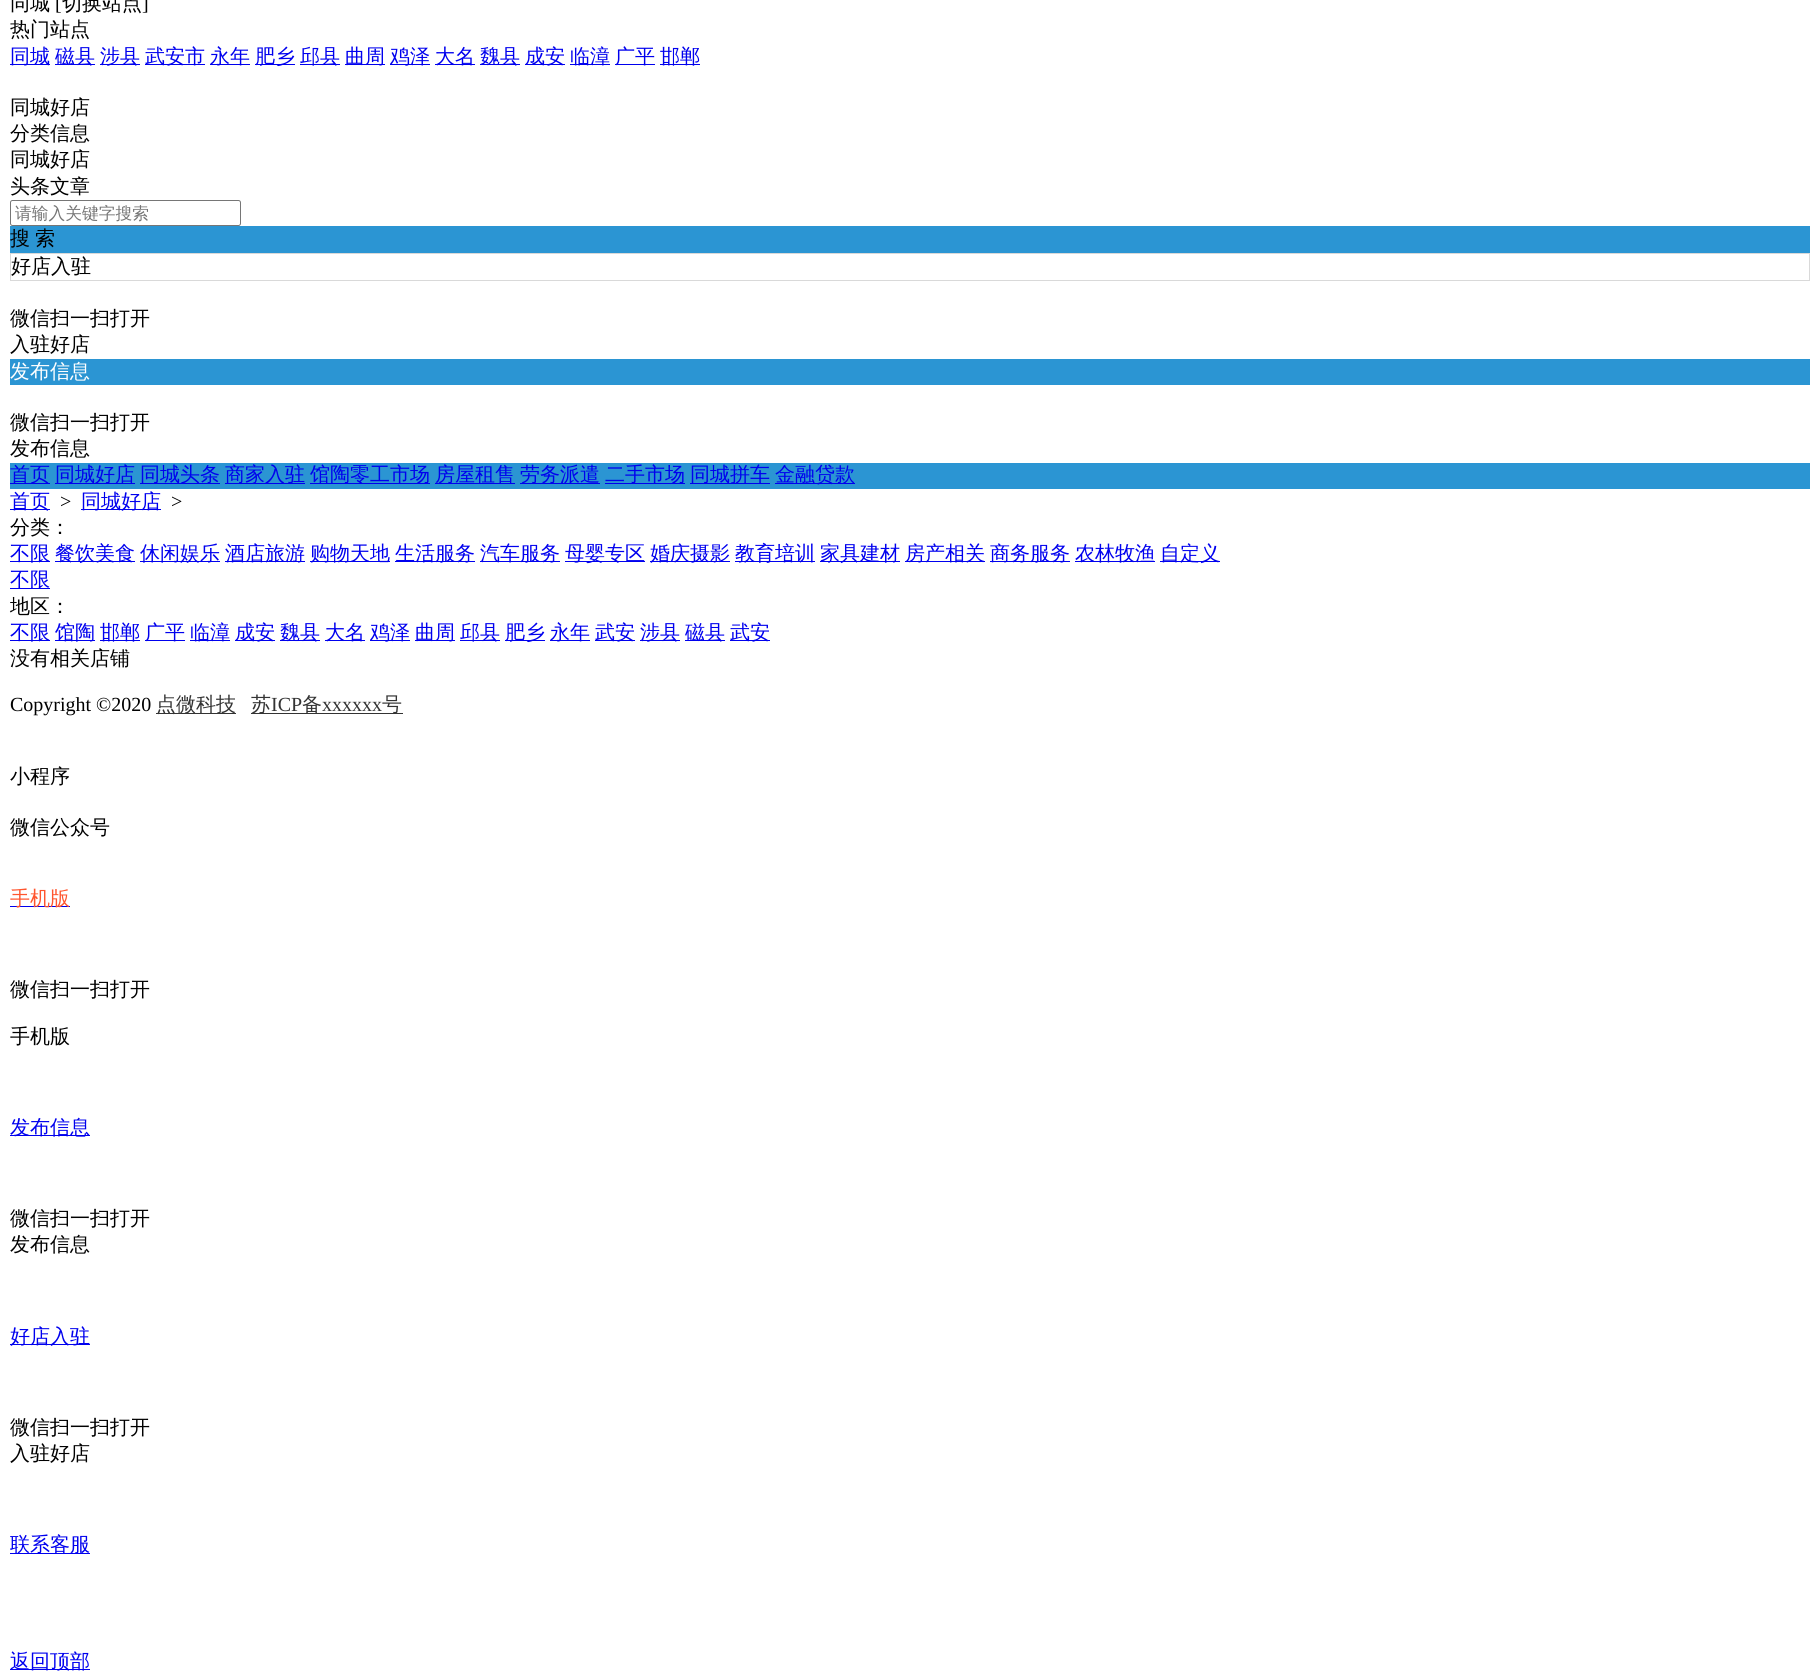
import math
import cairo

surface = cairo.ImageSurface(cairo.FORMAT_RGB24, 1820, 1674)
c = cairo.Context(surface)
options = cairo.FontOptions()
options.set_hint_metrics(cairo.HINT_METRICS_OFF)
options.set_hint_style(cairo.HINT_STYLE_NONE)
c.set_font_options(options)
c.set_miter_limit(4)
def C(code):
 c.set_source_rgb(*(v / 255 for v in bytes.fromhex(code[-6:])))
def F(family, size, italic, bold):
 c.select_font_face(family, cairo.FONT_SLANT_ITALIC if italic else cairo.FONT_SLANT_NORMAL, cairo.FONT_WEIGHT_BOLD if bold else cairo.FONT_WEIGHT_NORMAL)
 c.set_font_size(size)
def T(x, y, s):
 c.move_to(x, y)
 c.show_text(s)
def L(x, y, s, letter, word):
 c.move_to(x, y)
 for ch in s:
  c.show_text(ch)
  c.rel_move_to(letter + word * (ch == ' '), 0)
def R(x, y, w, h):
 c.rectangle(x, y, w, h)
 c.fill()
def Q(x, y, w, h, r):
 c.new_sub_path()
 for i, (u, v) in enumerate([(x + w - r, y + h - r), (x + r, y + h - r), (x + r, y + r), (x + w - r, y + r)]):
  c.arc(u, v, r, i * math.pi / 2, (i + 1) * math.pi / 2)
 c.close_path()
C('ffffff')
c.paint()
F('WenQuanYi Zen Hei Medium',20,0,0)
C('000000')
T(10,10,'同城')
F('Liberation Serif',20,0,0)
T(55,10,'[')
F('WenQuanYi Zen Hei Medium',20,0,0)
T(62,10,'切换站点')
F('Liberation Serif',20,0,0)
T(142,10,']')
F('WenQuanYi Zen Hei Medium',20,0,0)
T(10,36,'热门站点')
C('0000ee')
R(10,64,40,1)
T(10,63,'同城')
R(55,64,40,1)
T(55,63,'磁县')
R(100,64,40,1)
T(100,63,'涉县')
R(145,64,60,1)
T(145,63,'武安市')
R(210,64,40,1)
T(210,63,'永年')
R(255,64,40,1)
T(255,63,'肥乡')
R(300,64,40,1)
T(300,63,'邱县')
R(345,64,40,1)
T(345,63,'曲周')
R(390,64,40,1)
T(390,63,'鸡泽')
R(435,64,40,1)
T(435,63,'大名')
R(480,64,40,1)
T(480,63,'魏县')
R(525,64,40,1)
T(525,63,'成安')
R(570,64,40,1)
T(570,63,'临漳')
R(615,64,40,1)
T(615,63,'广平')
R(660,64,40,1)
T(660,63,'邯郸')
C('000000')
T(10,114,'同城好店')
T(10,140,'分类信息')
T(10,166,'同城好店')
T(10,193,'头条文章')
Q(10.5,200.5,230,25,2)
C('767676')
c.set_line_width(1)
c.stroke()
F('WenQuanYi Zen Hei Medium',16.75,0,0)
C('757575')
T(15,219,'请输入关键字搜索')
C('2b95d3')
R(10,226,1800,27)
F('WenQuanYi Zen Hei Medium',20,0,0)
C('000000')
L(10,245,'搜 索',0,-1)
c.rectangle(10.5,253.5,1799,27)
C('d9d9d9')
c.stroke()
C('000000')
T(11,273,'好店入驻')
T(10,325,'微信扫一扫打开')
T(10,351,'入驻好店')
C('2b95d3')
R(10,359,1800,26)
C('ffffff')
T(10,378,'发布信息')
C('000000')
T(10,429,'微信扫一扫打开')
T(10,455,'发布信息')
C('2b95d3')
R(10,463,1800,26)
C('0000ee')
R(10,483,40,1)
T(10,481,'首页')
R(55,483,80,1)
T(55,481,'同城好店')
R(140,483,80,1)
T(140,481,'同城头条')
R(225,483,80,1)
T(225,481,'商家入驻')
R(310,483,120,1)
T(310,481,'馆陶零工市场')
R(435,483,80,1)
T(435,481,'房屋租售')
R(520,483,80,1)
T(520,481,'劳务派遣')
R(605,483,80,1)
T(605,481,'二手市场')
R(690,483,80,1)
T(690,481,'同城拼车')
R(775,483,80,1)
T(775,481,'金融贷款')
R(10,509,40,1)
T(10,508,'首页')
F('Liberation Serif',20,0,0)
C('000000')
T(60,508,'>')
C('0000ee')
R(81,509,80,1)
F('WenQuanYi Zen Hei Medium',20,0,0)
T(81,508,'同城好店')
F('Liberation Serif',20,0,0)
C('000000')
T(171,508,'>')
F('WenQuanYi Zen Hei Medium',20,0,0)
T(10,534,'分类：')
C('0000ee')
R(10,561,40,1)
T(10,560,'不限')
R(55,561,80,1)
T(55,560,'餐饮美食')
R(140,561,80,1)
T(140,560,'休闲娱乐')
R(225,561,80,1)
T(225,560,'酒店旅游')
R(310,561,80,1)
T(310,560,'购物天地')
R(395,561,80,1)
T(395,560,'生活服务')
R(480,561,80,1)
T(480,560,'汽车服务')
R(565,561,80,1)
T(565,560,'母婴专区')
R(650,561,80,1)
T(650,560,'婚庆摄影')
R(735,561,80,1)
T(735,560,'教育培训')
R(820,561,80,1)
T(820,560,'家具建材')
R(905,561,80,1)
T(905,560,'房产相关')
R(990,561,80,1)
T(990,560,'商务服务')
R(1075,561,80,1)
T(1075,560,'农林牧渔')
R(1160,561,60,1)
T(1160,560,'自定义')
R(10,588,40,1)
T(10,586,'不限')
C('000000')
T(10,613,'地区：')
C('0000ee')
R(10,640,40,1)
T(10,639,'不限')
R(55,640,40,1)
T(55,639,'馆陶')
R(100,640,40,1)
T(100,639,'邯郸')
R(145,640,40,1)
T(145,639,'广平')
R(190,640,40,1)
T(190,639,'临漳')
R(235,640,40,1)
T(235,639,'成安')
R(280,640,40,1)
T(280,639,'魏县')
R(325,640,40,1)
T(325,639,'大名')
R(370,640,40,1)
T(370,639,'鸡泽')
R(415,640,40,1)
T(415,639,'曲周')
R(460,640,40,1)
T(460,639,'邱县')
R(505,640,40,1)
T(505,639,'肥乡')
R(550,640,40,1)
T(550,639,'永年')
R(595,640,40,1)
T(595,639,'武安')
R(640,640,40,1)
T(640,639,'涉县')
R(685,640,40,1)
T(685,639,'磁县')
R(730,640,40,1)
T(730,639,'武安')
C('000000')
T(10,665,'没有相关店铺')
F('Liberation Serif',20,0,0)
T(10,711,'Copyright ©2020')
C('333333')
R(156,713,80,1)
F('WenQuanYi Zen Hei Medium',20,0,0)
T(156,711,'点微科技')
R(251,713,152,1)
T(251,711,'苏')
F('Liberation Serif',20,0,0)
T(271,711,'ICP')
F('WenQuanYi Zen Hei Medium',20,0,0)
T(302,711,'备')
F('Liberation Serif',20,0,0)
T(322,711,'xxxxxx')
F('WenQuanYi Zen Hei Medium',20,0,0)
T(382,711,'号')
C('000000')
T(10,783,'小程序')
T(10,834,'微信公众号')
C('0000ee')
R(10,906,60,1)
C('ff552e')
T(10,905,'手机版')
C('000000')
T(10,996,'微信扫一扫打开')
T(10,1043,'手机版')
C('0000ee')
R(10,1135,80,1)
T(10,1134,'发布信息')
C('000000')
T(10,1225,'微信扫一扫打开')
T(10,1251,'发布信息')
C('0000ee')
R(10,1344,80,1)
T(10,1343,'好店入驻')
C('000000')
T(10,1434,'微信扫一扫打开')
T(10,1460,'入驻好店')
C('0000ee')
R(10,1553,80,1)
T(10,1551,'联系客服')
R(10,1669,80,1)
T(10,1668,'返回顶部')
surface.write_to_png('o.png')
